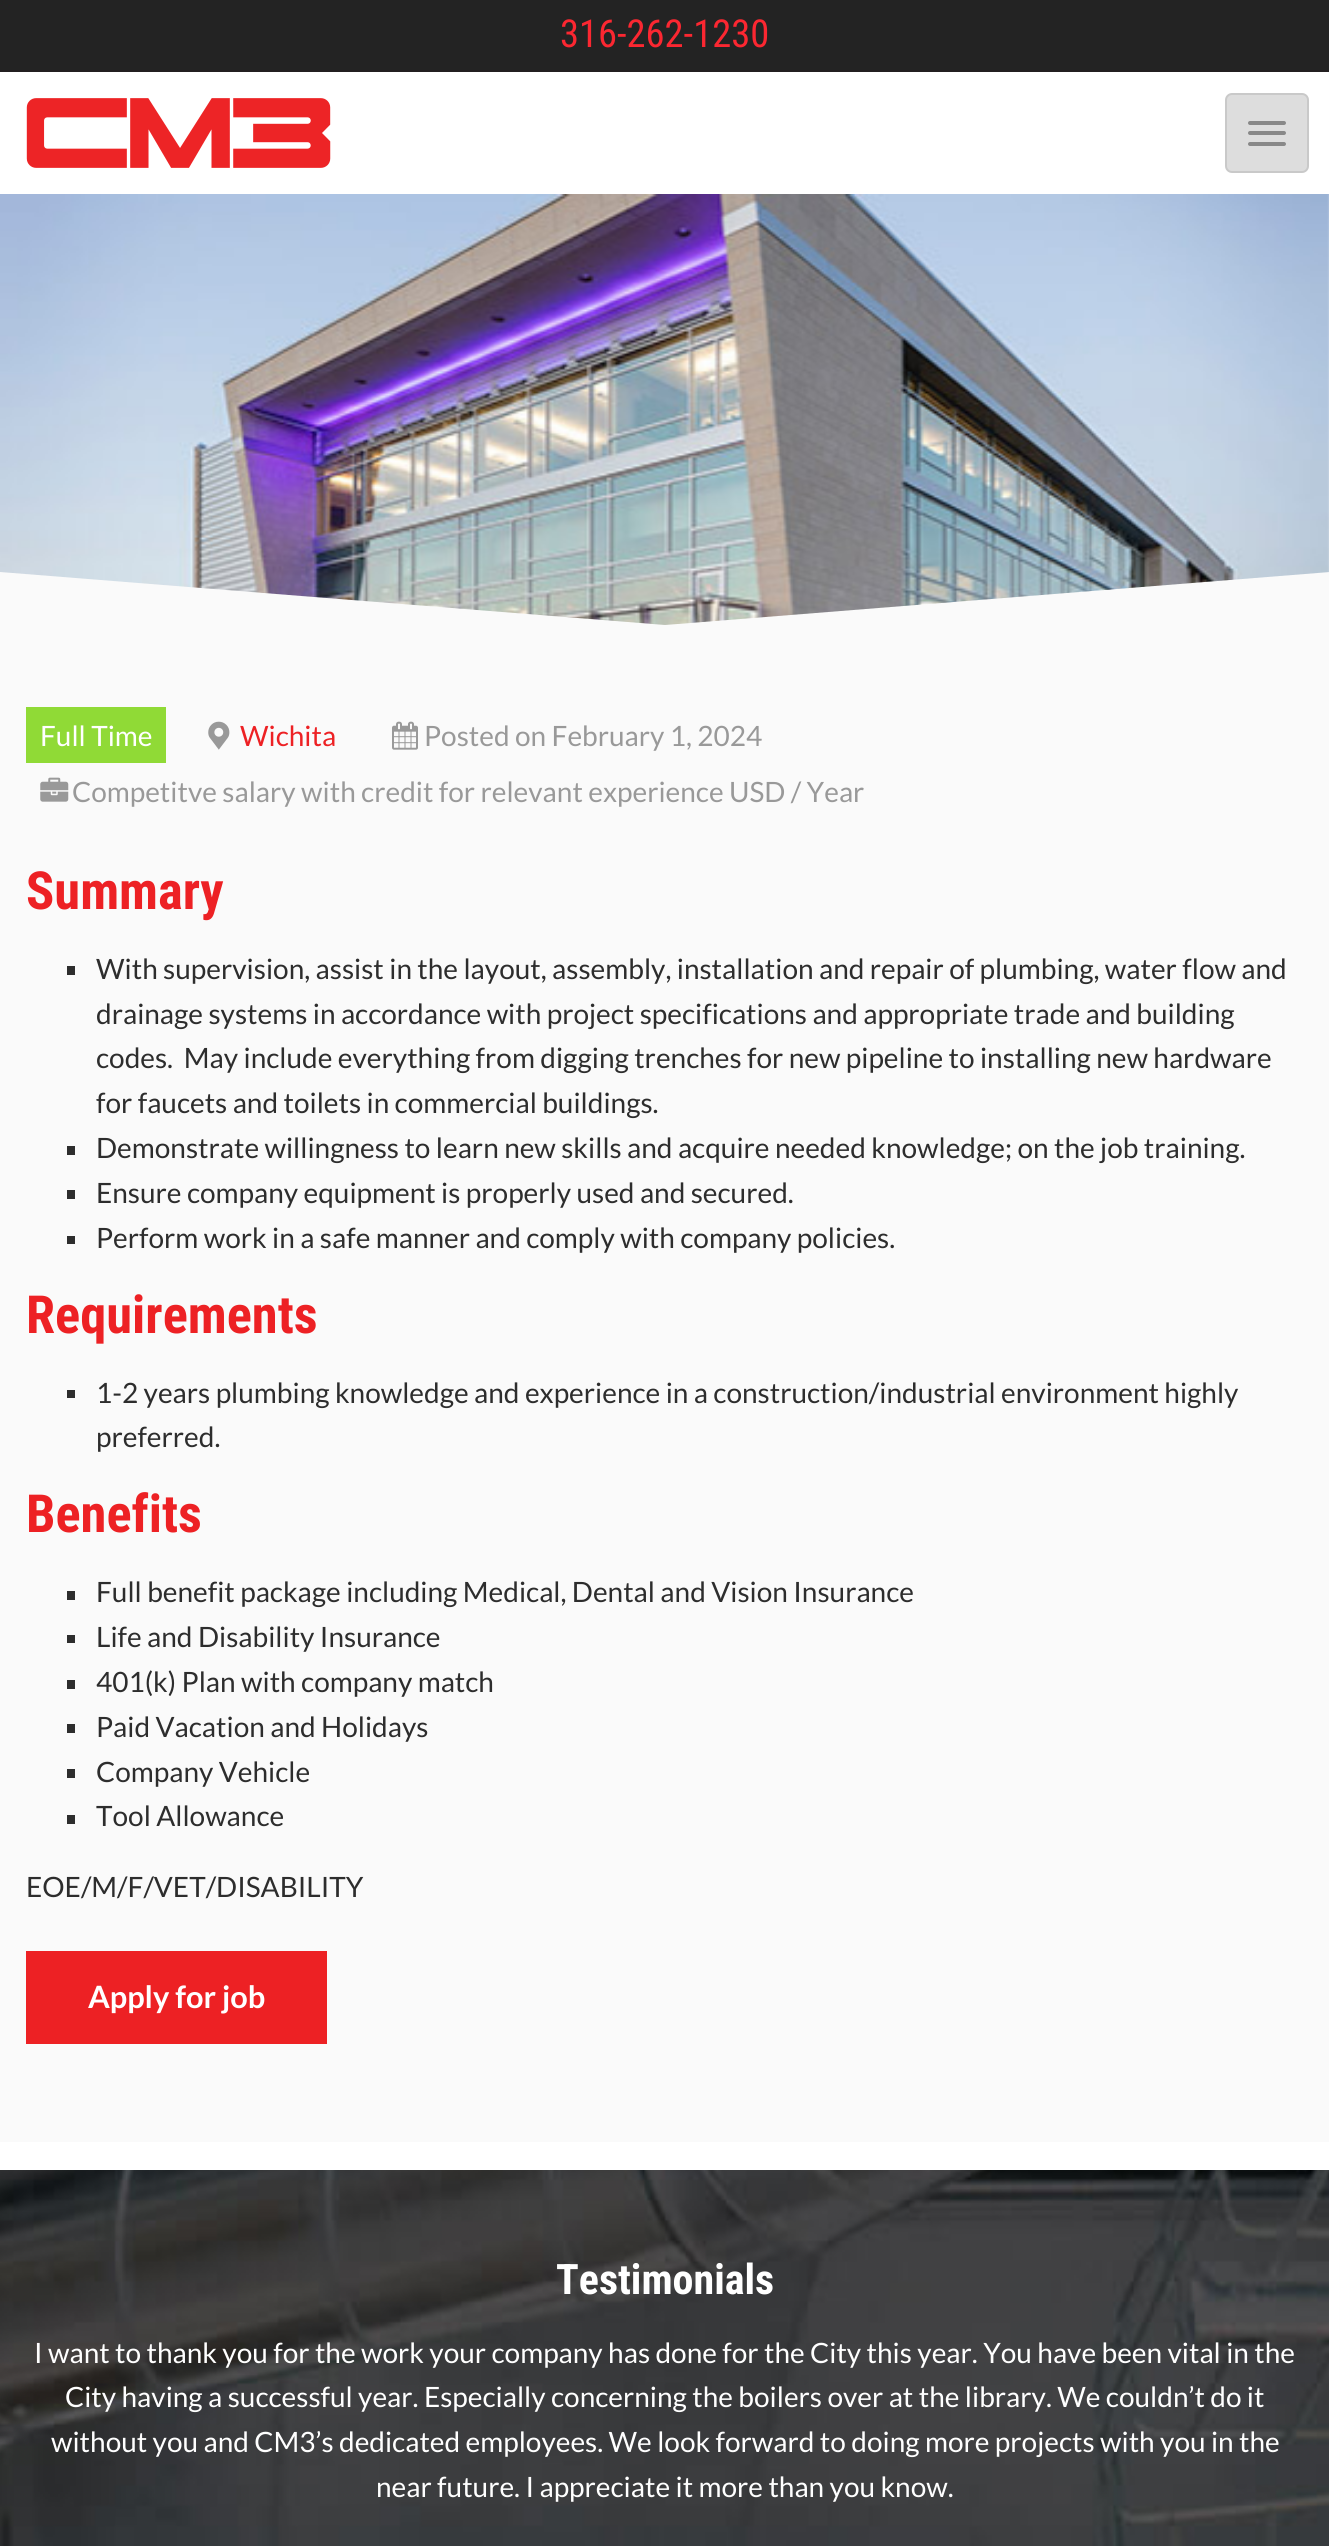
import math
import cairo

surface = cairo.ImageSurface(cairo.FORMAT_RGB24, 1329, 2546)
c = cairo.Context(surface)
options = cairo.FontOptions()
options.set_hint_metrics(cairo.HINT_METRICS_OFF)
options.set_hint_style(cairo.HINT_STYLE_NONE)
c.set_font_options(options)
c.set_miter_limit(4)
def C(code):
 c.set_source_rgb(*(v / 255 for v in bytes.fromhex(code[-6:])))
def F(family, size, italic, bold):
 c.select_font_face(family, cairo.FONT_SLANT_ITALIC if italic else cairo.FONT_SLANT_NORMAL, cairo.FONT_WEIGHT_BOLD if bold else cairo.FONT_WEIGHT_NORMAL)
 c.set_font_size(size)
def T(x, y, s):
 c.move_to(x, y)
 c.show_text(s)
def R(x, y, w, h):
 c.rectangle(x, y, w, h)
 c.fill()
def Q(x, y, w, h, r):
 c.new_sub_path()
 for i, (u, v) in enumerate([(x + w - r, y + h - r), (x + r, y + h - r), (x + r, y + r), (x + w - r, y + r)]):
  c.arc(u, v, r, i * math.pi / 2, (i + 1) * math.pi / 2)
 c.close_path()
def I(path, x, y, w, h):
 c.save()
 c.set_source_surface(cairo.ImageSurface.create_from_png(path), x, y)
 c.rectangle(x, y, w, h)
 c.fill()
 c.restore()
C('ffffff')
c.paint()
C('232323')
R(0,0,1329,70)
C('231f20')
R(0,70,1329,2)
F('Roboto Condensed',38.5,0,0)
C('fc2731')
T(560,47,'316-262-1230')
I('1.png',26,98,305,70)
C('dddddd')
Q(1226,94,82,78,6)
c.fill_preserve()
C('c9c9c9')
c.stroke()
C('888888')
Q(1248,121,38,4,2)
c.fill()
Q(1248,131,38,4,2)
c.fill()
Q(1248,142,38,4,2)
c.fill()
I('2.png',0,194,1329,431)
c.save()
c.rectangle(0,572,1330,65)
c.clip()
C('fafafa')
c.new_path()
c.move_to(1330,639)
c.line_to(0,639)
c.line_to(0,572)
c.line_to(665,625)
c.line_to(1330,572)
c.line_to(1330,606)
c.close_path()
c.fill()
c.restore()
C('fafafa')
R(0,637,1329,1505)
C('90da36')
R(26,707,140,56)
F('Lato',28,0,0)
C('ffffff')
T(40,746,'Full Time')
I('3.png',208,721,22,29)
C('ed2124')
T(240,746,'Wichita')
I('4.png',392,721,26,29)
C('999999')
T(424,746,'Posted on February 1, 2024')
I('5.png',40,777,29,25)
T(72,802,'Competitve salary with credit for relevant experience USD / Year')
F('Roboto Condensed',52.5,0,1)
C('ed2124')
T(26,909,'Summary')
C('2d2d2d')
R(67,966,8,9)
F('Lato',28,0,0)
T(96,979,'With supervision, assist in the layout, assembly, installation and repair of plumbing, water flow and')
T(96,1024,'drainage systems in accordance with project specifications and appropriate trade and building')
T(96,1068,'codes.  May include everything from digging trenches for new pipeline to installing new hardware')
T(96,1113,'for faucets and toilets in commercial buildings.')
R(67,1146,8,9)
T(96,1158,'Demonstrate willingness to learn new skills and acquire needed knowledge; on the job training.')
R(67,1190,8,9)
T(96,1203,'Ensure company equipment is properly used and secured.')
R(67,1236,8,8)
T(96,1248,'Perform work in a safe manner and comply with company policies.')
F('Roboto Condensed',52.5,0,1)
C('ed2124')
T(26,1333,'Requirements')
C('2d2d2d')
R(67,1390,8,8)
F('Lato',28,0,0)
T(96,1403,'1-2 years plumbing knowledge and experience in a construction/industrial environment highly')
T(96,1447,'preferred.')
F('Roboto Condensed',52.5,0,1)
C('ed2124')
T(26,1532,'Benefits')
C('2d2d2d')
R(67,1591,8,9)
F('Lato',28,0,0)
T(96,1602,'Full benefit package including Medical, Dental and Vision Insurance')
R(67,1635,8,8)
T(96,1647,'Life and Disability Insurance')
R(67,1680,8,9)
T(96,1692,'401(k) Plan with company match')
R(67,1724,8,9)
T(96,1737,'Paid Vacation and Holidays')
R(67,1769,8,9)
T(96,1782,'Company Vehicle')
R(67,1815,8,9)
T(96,1826,'Tool Allowance')
T(26,1897,'EOE/M/F/VET/DISABILITY')
C('ed2124')
R(26,1951,301,93)
F('Lato',30.75,0,1)
C('ffffff')
T(88,2008,'Apply for job')
I('6.png',0,2170,1329,376)
F('Roboto Condensed',42,0,1)
T(556,2294,'Testimonials')
F('Lato',28,0,0)
T(34,2363,'I want to thank you for the work your company has done for the City this year. You have been vital in the')
T(65,2407,'City having a successful year. Especially concerning the boilers over at the library. We couldn’t do it')
T(51,2452,'without you and CM3’s dedicated employees. We look forward to doing more projects with you in the')
T(376,2497,'near future. I appreciate it more than you know.')
surface.write_to_png('o.png')
